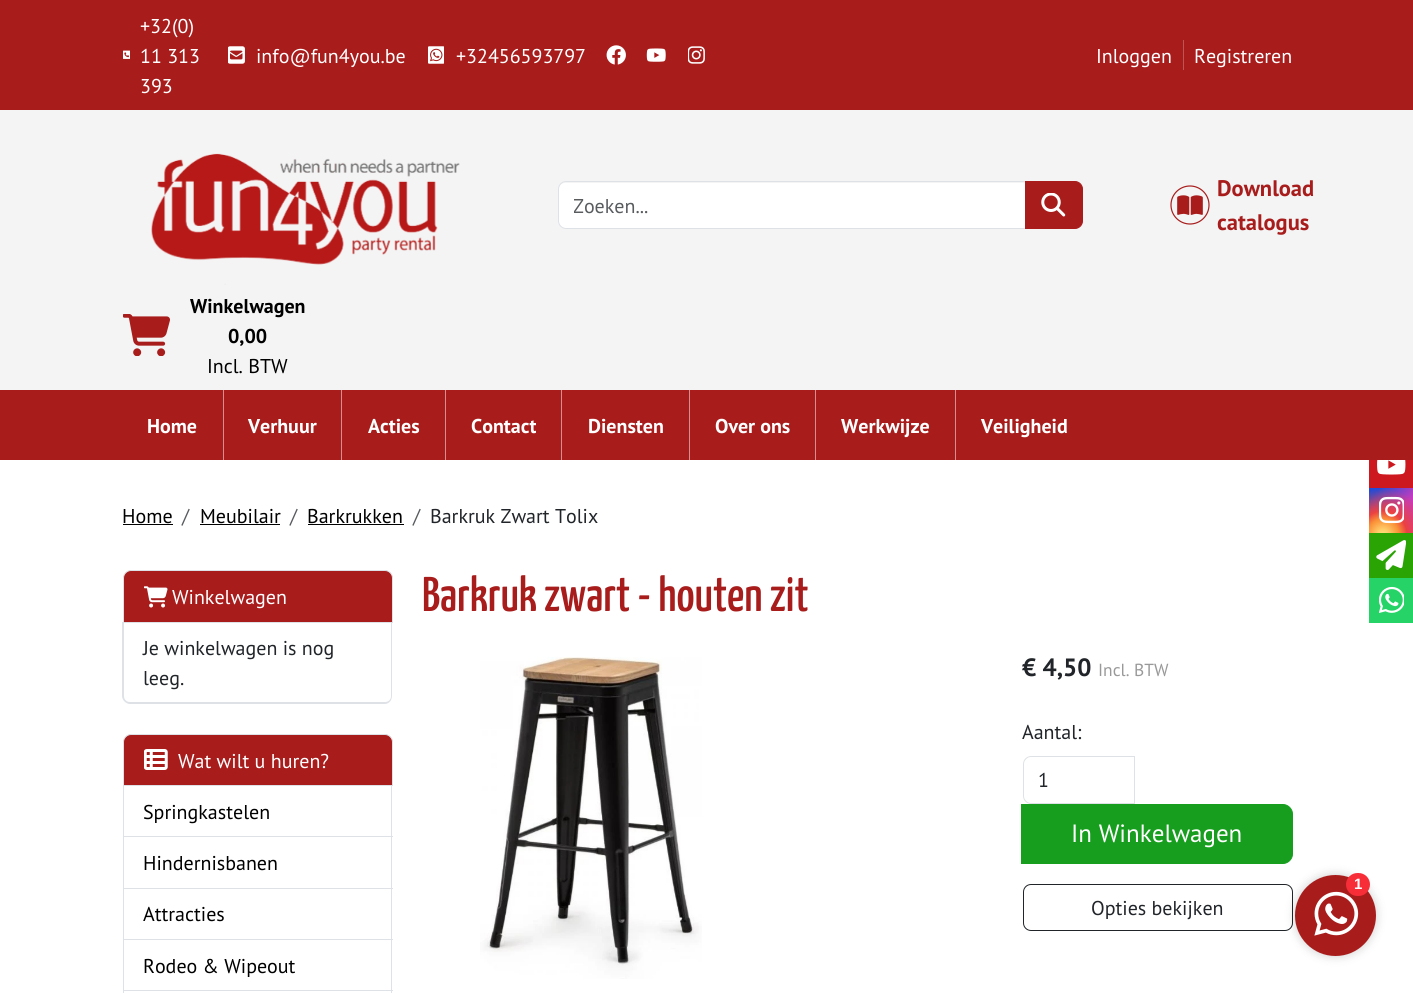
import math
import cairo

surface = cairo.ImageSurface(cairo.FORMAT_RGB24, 1413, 993)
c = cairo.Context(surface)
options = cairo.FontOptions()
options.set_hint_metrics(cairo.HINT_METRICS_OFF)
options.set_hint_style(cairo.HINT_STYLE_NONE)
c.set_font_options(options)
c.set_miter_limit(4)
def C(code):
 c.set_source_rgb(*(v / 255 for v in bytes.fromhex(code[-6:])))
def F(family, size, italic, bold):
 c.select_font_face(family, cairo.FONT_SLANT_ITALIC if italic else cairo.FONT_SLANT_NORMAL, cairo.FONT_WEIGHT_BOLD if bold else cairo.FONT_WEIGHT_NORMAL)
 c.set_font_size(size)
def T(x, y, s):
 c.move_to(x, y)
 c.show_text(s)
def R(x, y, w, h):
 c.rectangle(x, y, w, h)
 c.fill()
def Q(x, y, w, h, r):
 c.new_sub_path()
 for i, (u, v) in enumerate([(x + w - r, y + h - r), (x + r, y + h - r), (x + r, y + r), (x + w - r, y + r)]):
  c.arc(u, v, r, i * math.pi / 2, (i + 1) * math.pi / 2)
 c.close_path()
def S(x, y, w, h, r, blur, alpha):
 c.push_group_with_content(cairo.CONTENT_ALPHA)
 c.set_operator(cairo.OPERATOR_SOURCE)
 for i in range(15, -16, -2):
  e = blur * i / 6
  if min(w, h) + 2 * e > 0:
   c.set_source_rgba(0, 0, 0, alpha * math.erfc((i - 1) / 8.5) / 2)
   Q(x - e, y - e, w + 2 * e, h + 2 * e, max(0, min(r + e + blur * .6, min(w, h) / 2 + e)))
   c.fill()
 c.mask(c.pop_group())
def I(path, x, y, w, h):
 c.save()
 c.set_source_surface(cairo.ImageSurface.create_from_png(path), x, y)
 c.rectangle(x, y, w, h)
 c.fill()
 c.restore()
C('ffffff')
c.paint()
C('f4f4f4')
R(0,110,1413,280)
C('a81c1c')
R(0,0,1413,110)
F('PT Sans',20,0,0)
C('ffffff')
T(140,33,'+32(0)')
I('1.png',123,50,7,9)
T(140,63,'11 313')
T(140,93,'393')
I('2.png',228,46,17,18)
T(256,63,'info@fun4you.be')
I('3.png',428,46,16,18)
T(456,63,'+32456593797')
I('4.png',606,45,20,20)
I('5.png',646,48,20,14)
I('6.png',688,46,17,18)
T(1096,63,'Inloggen')
C('be5555')
R(1183,40,1,30)
C('ffffff')
T(1194,63,'Registreren')
I('7.png',151,153,309,132)
c.new_path()
c.move_to(565,183)
c.line_to(1025,183)
c.line_to(1025,228)
c.line_to(565,228)
c.curve_to(561.5,228,559,225.5,559,222)
c.line_to(559,189)
c.curve_to(559,185.5,561.5,183,565,183)
c.close_path()
c.fill()
c.new_path()
c.move_to(566,181.5)
c.line_to(1025.5,181.5)
c.line_to(1025.5,228.5)
c.line_to(566,228.5)
c.curve_to(562,228.5,558.5,225,558.5,221)
c.line_to(558.5,189)
c.curve_to(558.5,185,562,181.5,566,181.5)
c.close_path()
C('dee2e6')
c.set_line_width(1)
c.stroke()
c.save()
c.rectangle(574,193,417,25)
c.clip()
C('595c5f')
T(573,213,'Zoeken...')
c.restore()
C('a81c1c')
c.new_path()
c.move_to(1025.5,181.5)
c.line_to(1075,181.5)
c.curve_to(1079,181.5,1082.5,185,1082.5,189)
c.line_to(1082.5,221)
c.curve_to(1082.5,225,1079,228.5,1075,228.5)
c.line_to(1025.5,228.5)
c.close_path()
c.fill_preserve()
c.stroke()
I('8.png',1041,193,25,24)
I('9.png',1170,185,40,40)
F('PT Sans',22.5,0,1)
T(1217,196,'Download')
T(1217,230,'catalogus')
I('10.png',123,314,47,42)
F('PT Sans',20,0,1)
C('000000')
T(190,313,'Winkelwagen')
T(228,343,'0,00')
F('PT Sans',20,0,0)
T(207,373,'Incl. BTW')
C('a81c1c')
R(0,390,1413,70)
C('d48e8e')
R(223,390,1,70)
F('PT Sans',20,0,1)
C('ffffff')
T(147,433,'Home')
C('d48e8e')
R(341,390,1,70)
C('ffffff')
T(248,433,'Verhuur')
C('d48e8e')
R(445,390,1,70)
C('ffffff')
T(368,433,'Acties')
C('d48e8e')
R(561,390,1,70)
C('ffffff')
T(471,433,'Contact')
C('d48e8e')
R(689,390,1,70)
C('ffffff')
T(588,433,'Diensten')
C('d48e8e')
R(815,390,1,70)
C('ffffff')
T(715,433,'Over ons')
C('d48e8e')
R(955,390,1,70)
C('ffffff')
T(841,433,'Werkwijze')
T(981,433,'Veiligheid')
F('PT Sans',20,0,0)
C('000000')
T(122,523,'Home')
R(123,524,50,1)
C('595c5f')
T(182,523,'/')
C('000000')
T(200,523,'Meubilair')
R(200,524,80,1)
C('595c5f')
T(290,523,'/')
C('000000')
T(307,523,'Barkrukken')
R(308,524,96,1)
C('595c5f')
T(413,523,'/')
C('212529')
T(430,523,'Barkruk Zwart Tolix')
C('a81c1c')
c.new_path()
c.move_to(131,570.5)
c.line_to(385,570.5)
c.curve_to(389,570.5,392.5,574,392.5,578)
c.line_to(392.5,622.5)
c.line_to(123.5,622.5)
c.line_to(123.5,578)
c.curve_to(123.5,574,127,570.5,131,570.5)
c.close_path()
c.fill_preserve()
C('dee2e6')
c.stroke()
I('11.png',144,586,24,22)
C('ffffff')
T(172,604,'Winkelwagen')
C('dee2e6')
c.set_fill_rule(cairo.FILL_RULE_EVEN_ODD)
c.new_path()
c.move_to(122,622)
c.line_to(392,622)
c.line_to(392,696)
c.curve_to(392,700,389,704,385,704)
c.line_to(130,704)
c.curve_to(126,704,122,700,122,696)
c.close_path()
c.move_to(124,622)
c.line_to(391,622)
c.line_to(391,696)
c.curve_to(391,700,388,702,385,702)
c.line_to(130,702)
c.curve_to(127,702,124,700,124,696)
c.close_path()
c.fill()
C('212529')
T(143,655,'Je winkelwagen is nog')
T(143,685,'leeg.')
C('a81c1c')
c.new_path()
c.move_to(131,734.5)
c.line_to(385,734.5)
c.curve_to(389,734.5,392.5,738,392.5,742)
c.line_to(392.5,785.5)
c.line_to(123.5,785.5)
c.line_to(123.5,742)
c.curve_to(123.5,738,127,734.5,131,734.5)
c.close_path()
c.fill_preserve()
C('dee2e6')
c.stroke()
I('12.png',144,749,24,21)
C('ffffff')
T(178,768,'Wat wilt u huren?')
C('dee2e6')
R(391,786,1,207)
R(123,836,270,1)
R(123,786,1,52)
C('000000')
T(143,819,'Springkastelen')
C('dee2e6')
R(123,888,270,1)
R(123,838,1,51)
C('000000')
T(143,870,'Hindernisbanen')
C('dee2e6')
R(123,939,270,1)
R(123,889,1,51)
C('000000')
T(143,921,'Attracties')
C('dee2e6')
R(123,990,270,1)
R(123,940,1,53)
C('000000')
T(143,973,'Rodeo & Wipeout')
F('Yanone Kaffeesatz Medium',48.75,0,0)
C('a81c1c')
T(422,611,'Barkruk zwart - houten zit')
I('13.png',480,657,222,322)
F('PT Sans',25,0,1)
C('212529')
T(1022,676,'€ 4,50')
F('PT Sans',17.5,0,0)
C('999999')
T(1098,676,'Incl. BTW')
F('PT Sans',20,0,0)
C('212529')
T(1022,739,'Aantal:')
c.new_path()
c.move_to(1031,756.5)
c.line_to(1134.5,756.5)
c.line_to(1134.5,803.5)
c.line_to(1031,803.5)
c.curve_to(1027,803.5,1023.5,800,1023.5,796)
c.line_to(1023.5,764)
c.curve_to(1023.5,760,1027,756.5,1031,756.5)
c.close_path()
C('dee2e6')
c.stroke()
C('212529')
T(1038,787,'1')
C('179e1f')
c.new_path()
c.move_to(1021.5,804.5)
c.line_to(1283,804.5)
c.curve_to(1288,804.5,1292.5,809,1292.5,814)
c.line_to(1292.5,854)
c.curve_to(1292.5,859,1288,863.5,1283,863.5)
c.line_to(1021.5,863.5)
c.close_path()
c.fill_preserve()
c.stroke()
F('PT Sans',25,0,0)
C('ffffff')
T(1071,842,'In Winkelwagen')
Q(1023.5,884.5,269,46,7.5)
C('212529')
c.stroke()
F('PT Sans',20,0,0)
T(1091,915,'Opties bekijken')
C('cc181e')
R(1369,460,44,28)
I('14.png',1377,460,29,15)
gradient = cairo.LinearGradient(1369,488,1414,533)
gradient.add_color_stop_rgba(.12,0.137,0.294,0.843,1)
gradient.add_color_stop_rgba(.58,0.765,0.235,0.745,1)
c.set_source(gradient)
R(1369,488,44,45)
gradient = cairo.RadialGradient(1383,535,0,1383,535,57)
gradient.add_color_stop_rgba(0,1,0.882,0.49,1)
gradient.add_color_stop_rgba(.1,1,0.804,0.412,1)
gradient.add_color_stop_rgba(.28,0.98,0.569,0.216,1)
gradient.add_color_stop_rgba(.42,0.922,0.255,0.255,1)
gradient.add_color_stop_rgba(.82,0.922,0.255,0.255,0)
c.set_source(gradient)
R(1369,489,44,44)
I('15.png',1379,496,25,28)
C('2aa404')
R(1369,533,44,45)
I('16.png',1376,540,30,30)
C('25d366')
R(1369,578,44,45)
I('17.png',1379,586,25,27)
C('000000')
S(1295,875,81,81,40.5,5,.2)
C('a81c1c')
c.arc(1335.5,915.5,40.5,0,2 * math.pi)
c.fill()
I('18.png',1314,891,45,45)
C('f72e38')
Q(1346,873,24,23,11.5)
c.fill()
F('Liberation Sans',15,0,1)
C('ffffff')
T(1354,889,'1')
surface.write_to_png('o.png')
